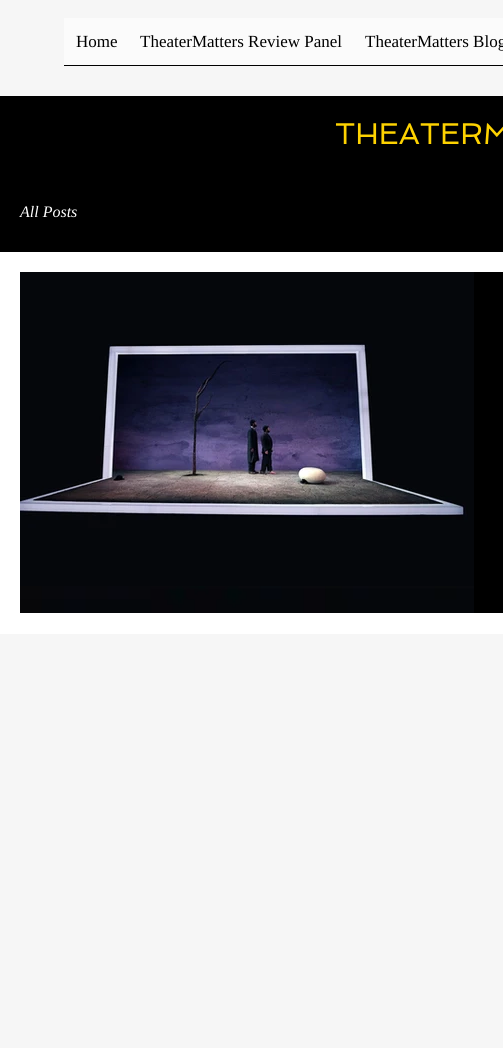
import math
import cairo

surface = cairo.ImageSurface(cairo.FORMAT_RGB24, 503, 1048)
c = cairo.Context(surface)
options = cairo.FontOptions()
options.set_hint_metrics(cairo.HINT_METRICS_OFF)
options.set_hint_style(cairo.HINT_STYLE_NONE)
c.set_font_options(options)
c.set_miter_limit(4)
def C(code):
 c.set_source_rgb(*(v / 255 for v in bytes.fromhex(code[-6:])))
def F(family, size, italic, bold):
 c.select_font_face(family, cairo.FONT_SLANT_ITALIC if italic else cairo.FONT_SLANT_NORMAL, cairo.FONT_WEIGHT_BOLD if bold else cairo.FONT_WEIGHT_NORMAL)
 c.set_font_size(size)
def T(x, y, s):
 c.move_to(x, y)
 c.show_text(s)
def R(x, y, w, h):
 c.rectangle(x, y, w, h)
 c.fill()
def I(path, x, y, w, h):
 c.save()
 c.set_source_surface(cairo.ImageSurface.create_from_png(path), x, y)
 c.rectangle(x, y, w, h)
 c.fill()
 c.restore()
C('f6f6f6')
c.paint()
C('fbfbfb')
R(64,18,439,47)
C('000000')
R(64,65,439,1)
F('Liberation Serif',17,0,0)
T(76,47,'Home')
T(140,47,'TheaterMatters Review Panel')
T(365,47,'TheaterMatters Blog')
R(0,96,503,156)
F('Spinnaker',30,0,0)
C('fed301')
T(335,144,'THEATERM')
C('ffffff')
R(0,252,503,382)
F('Liberation Serif',16,1,0)
T(20,217,'All Posts')
I('1.png',20,272,454,314)
I('2.png',20,586,454,27)
C('000000')
R(474,272,29,341)
surface.write_to_png('o.png')
